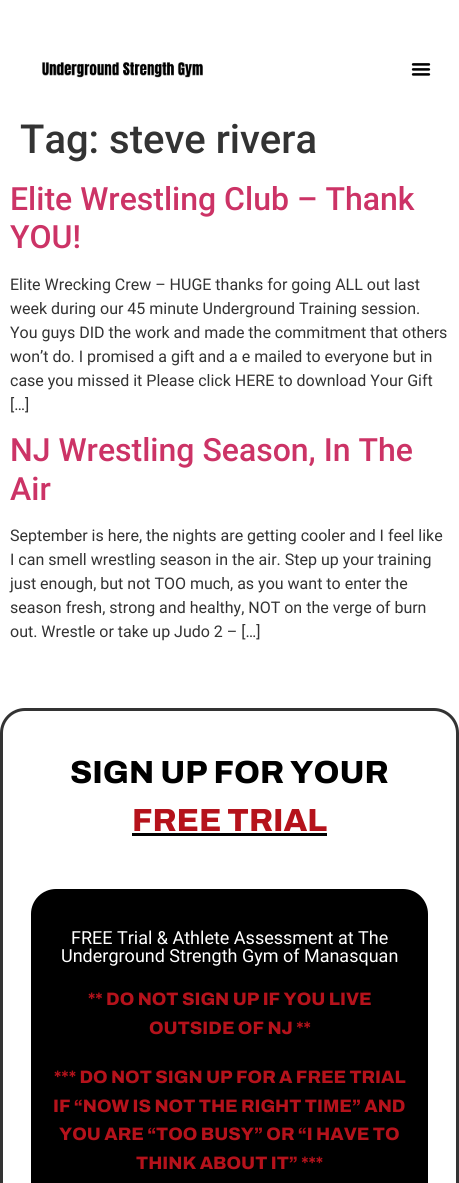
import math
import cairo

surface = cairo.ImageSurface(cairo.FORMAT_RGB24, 459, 1183)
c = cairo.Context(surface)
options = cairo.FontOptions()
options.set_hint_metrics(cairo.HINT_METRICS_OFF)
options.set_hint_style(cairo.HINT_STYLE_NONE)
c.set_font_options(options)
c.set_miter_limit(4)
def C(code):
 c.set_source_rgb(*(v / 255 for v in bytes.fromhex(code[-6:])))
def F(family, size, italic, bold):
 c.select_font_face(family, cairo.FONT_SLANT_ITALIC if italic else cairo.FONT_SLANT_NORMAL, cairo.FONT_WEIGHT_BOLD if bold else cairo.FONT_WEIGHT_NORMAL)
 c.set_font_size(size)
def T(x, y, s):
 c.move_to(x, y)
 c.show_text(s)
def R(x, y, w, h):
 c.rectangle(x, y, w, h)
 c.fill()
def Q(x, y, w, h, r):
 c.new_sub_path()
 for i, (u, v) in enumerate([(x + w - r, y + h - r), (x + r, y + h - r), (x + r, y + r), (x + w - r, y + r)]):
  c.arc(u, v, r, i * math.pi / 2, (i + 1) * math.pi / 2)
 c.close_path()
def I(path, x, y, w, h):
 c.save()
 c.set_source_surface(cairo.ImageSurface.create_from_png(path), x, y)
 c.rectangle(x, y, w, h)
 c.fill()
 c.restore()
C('ffffff')
c.paint()
I('1.png',42,62,161,16)
I('2.png',411,63,20,13)
F('Roboto Medium',40,0,0)
C('333333')
T(20,153,'Tag: steve rivera')
F('Roboto Medium',32,0,0)
C('cc3366')
T(10,210,'Elite Wrestling Club – Thank')
T(10,248,'YOU!')
F('Roboto',16,0,0)
C('333333')
T(10,290,'Elite Wrecking Crew – HUGE thanks for going ALL out last')
T(10,314,'week during our 45 minute Underground Training session.')
T(10,338,'You guys DID the work and made the commitment that others')
T(10,362,'won’t do. I promised a gift and a e mailed to everyone but in')
T(10,386,'case you missed it Please click HERE to download Your Gift')
T(10,410,'[…]')
F('Roboto Medium',32,0,0)
C('cc3366')
T(10,461,'NJ Wrestling Season, In The')
T(10,500,'Air')
F('Roboto',16,0,0)
C('333333')
T(10,541,'September is here, the nights are getting cooler and I feel like')
T(10,565,'I can smell wrestling season in the air. Step up your training')
T(10,589,'just enough, but not TOO much, as you want to enter the')
T(10,613,'season fresh, strong and healthy, NOT on the verge of burn')
T(10,637,'out. Wrestle or take up Judo 2 – […]')
Q(1.5,709.5,456,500,23.5)
c.set_line_width(3)
c.stroke()
F('Archivo ExtraBold',32,0,0)
C('000000')
T(70,783,'SIGN UP FOR YOUR')
C('b5121b')
T(132,831,'FREE TRIAL')
C('000000')
R(132,833,195,3)
Q(31,889,397,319,25)
c.fill()
F('Roboto',18,0,0)
C('ffffff')
T(71,944,'FREE Trial & Athlete Assessment at The')
T(61,962,'Underground Strength Gym of Manasquan')
F('Archivo ExtraBold',18,0,0)
C('b5121b')
T(88,1005,'** DO NOT SIGN UP IF YOU LIVE')
T(149,1034,'OUTSIDE OF NJ **')
T(54,1083,'*** DO NOT SIGN UP FOR A FREE TRIAL')
T(53,1112,'IF “NOW IS NOT THE RIGHT TIME” AND')
T(59,1140,'YOU ARE “TOO BUSY” OR “I HAVE TO')
T(136,1169,'THINK ABOUT IT” ***')
surface.write_to_png('o.png')
